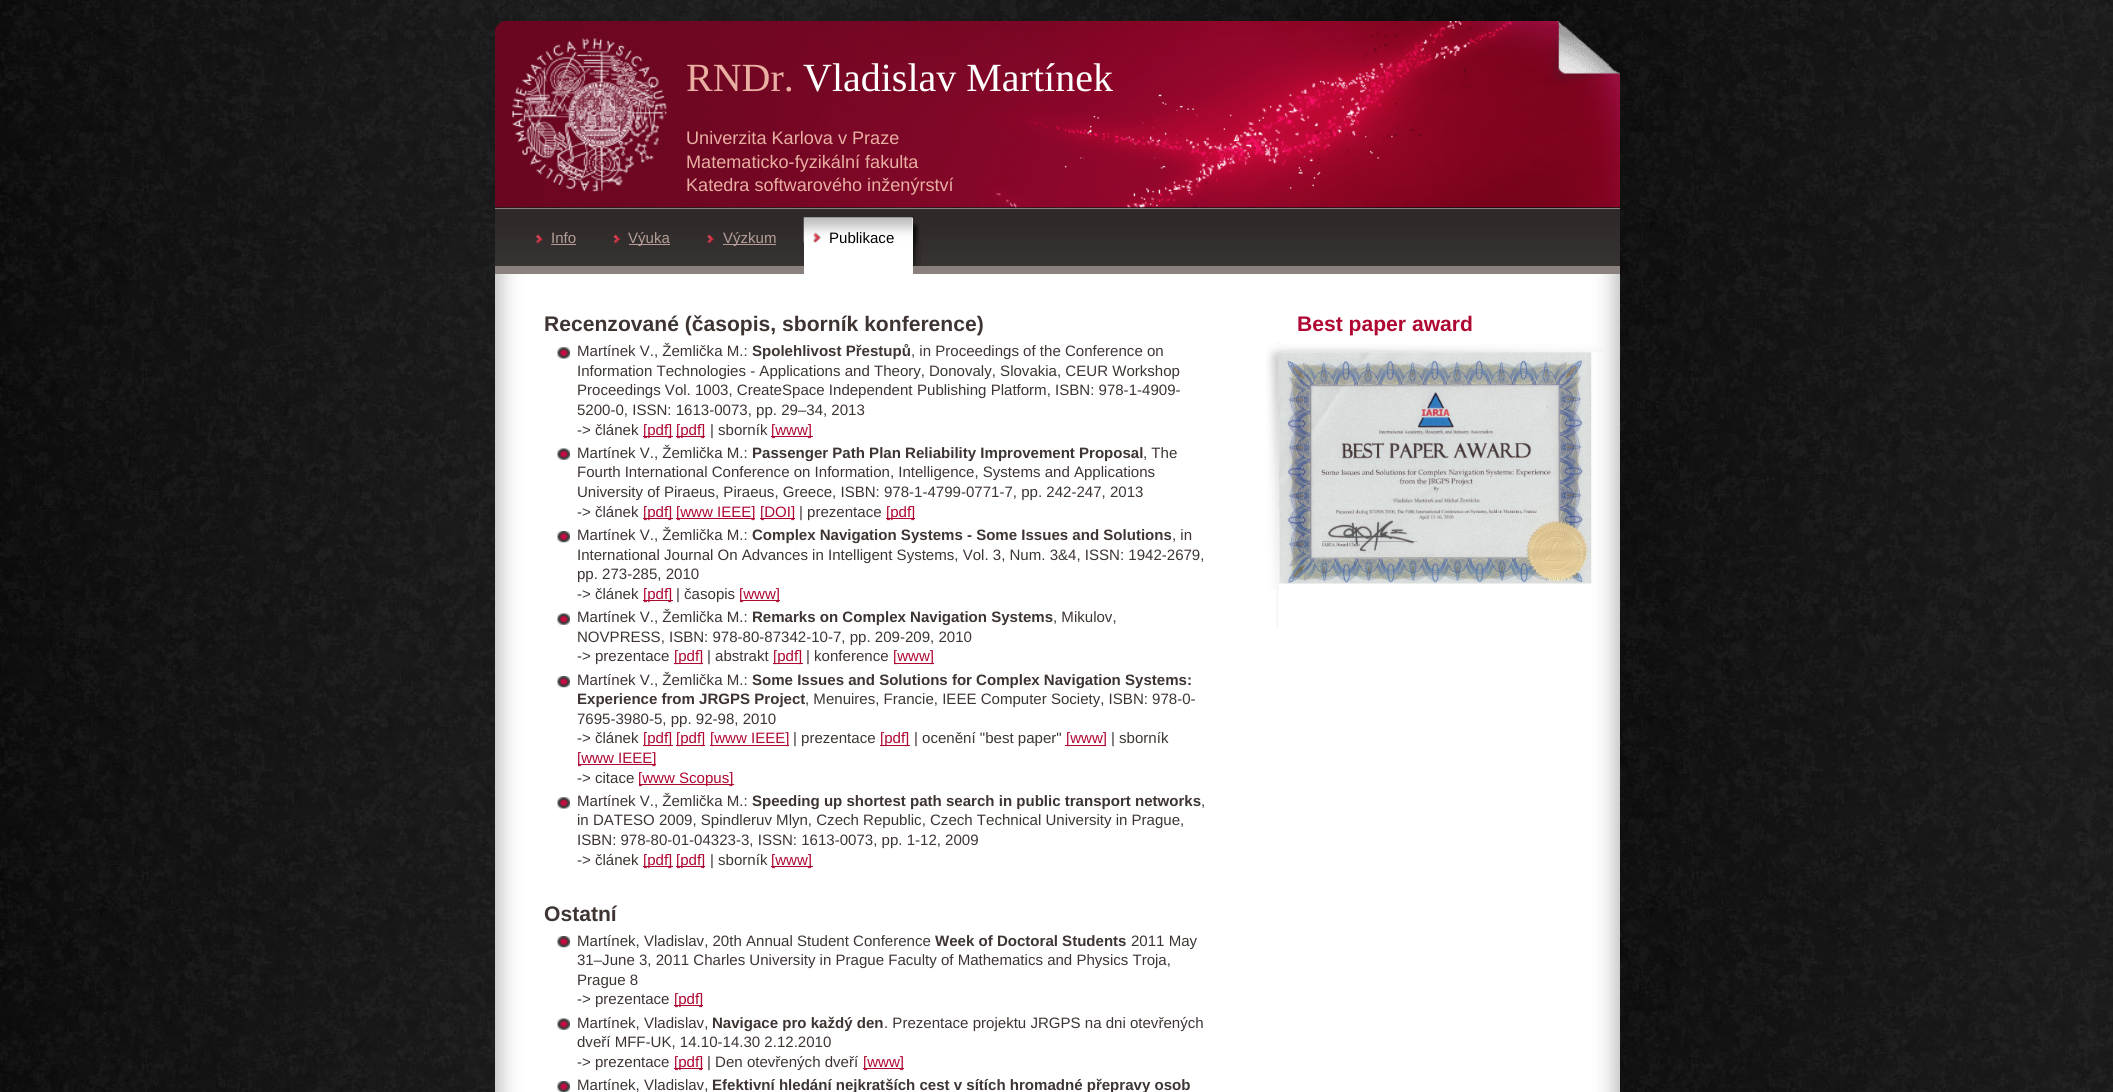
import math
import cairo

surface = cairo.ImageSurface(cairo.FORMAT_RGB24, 2113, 1092)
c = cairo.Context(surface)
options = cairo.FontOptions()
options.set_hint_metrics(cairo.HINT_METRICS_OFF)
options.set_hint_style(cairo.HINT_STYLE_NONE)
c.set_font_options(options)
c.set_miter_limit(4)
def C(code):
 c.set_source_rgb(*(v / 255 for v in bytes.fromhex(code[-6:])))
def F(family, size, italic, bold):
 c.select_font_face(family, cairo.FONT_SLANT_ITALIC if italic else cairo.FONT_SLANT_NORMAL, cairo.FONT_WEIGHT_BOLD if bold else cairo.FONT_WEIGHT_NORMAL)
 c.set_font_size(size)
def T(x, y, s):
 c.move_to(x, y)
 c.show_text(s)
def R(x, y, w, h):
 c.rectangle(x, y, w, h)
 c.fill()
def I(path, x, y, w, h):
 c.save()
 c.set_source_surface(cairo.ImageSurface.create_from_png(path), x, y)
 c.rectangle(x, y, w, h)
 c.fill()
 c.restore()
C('ffffff')
c.paint()
I('1.png',0,0,2113,1092)
I('2.png',495,21,1125,187)
F('Liberation Serif',40,0,0)
C('eaafa3')
T(686,91,'RNDr.')
C('ffffff')
T(803,91,'Vladislav Martínek')
F('Liberation Sans',18.1,0,0)
C('eaafa3')
T(686,144,'Univerzita Karlova v Praze')
T(686,168,'Matematicko-fyzikální fakulta')
T(686,191,'Katedra softwarového inženýrství')
I('3.png',495,209,1125,57)
C('8a817e')
R(495,208,1125,1)
R(495,266,1125,8)
I('4.png',536,234,7,10)
F('Liberation Sans',15.05,0,0)
C('b59d97')
T(551,243,'Info')
R(551,244,25,1)
I('5.png',613,234,8,10)
R(629,244,41,1)
T(628,243,'Výuka')
I('6.png',707,234,7,10)
R(723,244,53,1)
T(723,243,'Výzkum')
I('7.png',913,223,8,43)
C('ffffff')
R(804,218,109,56)
I('8.png',803,217,110,26)
I('9.png',813,232,9,11)
C('000000')
T(829,243,'Publikace')
I('10.png',495,274,1125,818)
F('Liberation Sans',21.1,0,1)
C('3e3533')
T(544,331,'Recenzované (časopis, sborník konference)')
I('11.png',557,347,13,12)
F('Liberation Sans',15.05,0,0)
T(577,356,'Martínek V., Žemlička M.:')
F('Liberation Sans',15.05,0,1)
T(752,356,'Spolehlivost Přestupů')
F('Liberation Sans',15.05,0,0)
T(911,356,', in Proceedings of the Conference on')
T(577,376,'Information Technologies - Applications and Theory,')
T(929,376,'Donovaly, Slovakia, CEUR Workshop')
T(577,395,'Proceedings Vol. 1003, CreateSpace Independent')
T(917,395,'Publishing Platform, ISBN: 978-1-4909-')
T(577,415,'5200-0, ISSN: 1613-0073, pp. 29–34, 2013')
T(577,435,'-> článek')
C('af0731')
R(643,436,30,1)
T(643,435,'[pdf]')
R(676,436,29,1)
T(676,435,'[pdf]')
C('3e3533')
T(710,435,'| sborník')
C('af0731')
R(771,436,42,1)
T(771,435,'[www]')
I('12.png',557,448,13,12)
C('3e3533')
T(577,458,'Martínek V., Žemlička M.:')
F('Liberation Sans',15.05,0,1)
T(752,458,'Passenger Path Plan Reliability Improvement Proposal')
F('Liberation Sans',15.05,0,0)
T(1143,458,', The')
T(577,477,'Fourth International Conference on Information, Intelligence, Systems and Applications')
T(577,497,'University of Piraeus, Piraeus, Greece, ISBN: 978-1-4799-0771-7, pp. 242-247, 2013')
T(577,517,'-> článek')
C('af0731')
R(643,518,30,1)
T(643,517,'[pdf]')
R(676,518,79,1)
T(676,517,'[www IEEE]')
R(760,518,35,1)
T(760,517,'[DOI]')
C('3e3533')
T(799,517,'| prezentace')
C('af0731')
R(886,518,29,1)
T(886,517,'[pdf]')
I('13.png',557,531,13,12)
C('3e3533')
T(577,540,'Martínek V., Žemlička M.:')
F('Liberation Sans',15.05,0,1)
T(752,540,'Complex Navigation Systems - Some Issues and Solutions')
F('Liberation Sans',15.05,0,0)
T(1172,540,', in')
T(577,560,'International Journal On Advances in Intelligent Systems, Vol. 3, Num. 3&4, ISSN: 1942-2679,')
T(577,579,'pp. 273-285, 2010')
T(577,599,'-> článek')
C('af0731')
R(643,600,30,1)
T(643,599,'[pdf]')
C('3e3533')
T(676,599,'| časopis')
C('af0731')
R(740,600,40,1)
T(739,599,'[www]')
I('12.png',557,613,13,12)
C('3e3533')
T(577,622,'Martínek V., Žemlička M.:')
F('Liberation Sans',15.05,0,1)
T(752,622,'Remarks on Complex Navigation Systems')
F('Liberation Sans',15.05,0,0)
T(1053,622,', Mikulov,')
T(577,642,'NOVPRESS, ISBN: 978-80-87342-10-7, pp. 209-209, 2010')
T(577,661,'-> prezentace')
C('af0731')
R(674,663,29,1)
T(674,661,'[pdf]')
C('3e3533')
T(707,661,'| abstrakt')
C('af0731')
R(773,663,30,1)
T(773,661,'[pdf]')
C('3e3533')
T(806,661,'| konference')
C('af0731')
R(894,663,40,1)
T(893,661,'[www]')
I('14.png',557,676,13,12)
C('3e3533')
T(577,685,'Martínek V., Žemlička M.:')
F('Liberation Sans',15.05,0,1)
T(752,685,'Some Issues and Solutions for Complex Navigation Systems:')
T(577,704,'Experience from JRGPS Project')
F('Liberation Sans',15.05,0,0)
T(805,704,', Menuires, Francie, IEEE Computer Society, ISBN: 978-0-')
T(577,724,'7695-3980-5, pp. 92-98, 2010')
T(577,743,'-> článek')
C('af0731')
R(643,745,30,1)
T(643,743,'[pdf]')
R(676,745,29,1)
T(676,743,'[pdf]')
R(710,745,79,1)
T(710,743,'[www IEEE]')
C('3e3533')
T(793,743,'| prezentace')
C('af0731')
R(880,745,30,1)
T(880,743,'[pdf]')
C('3e3533')
T(914,743,'| ocenění "best paper"')
C('af0731')
R(1065,745,41,1)
T(1066,743,'[www]')
C('3e3533')
T(1111,743,'| sborník')
C('af0731')
R(578,764,78,1)
T(577,763,'[www IEEE]')
C('3e3533')
T(577,783,'-> citace')
C('af0731')
R(639,784,95,1)
T(638,783,'[www Scopus]')
I('11.png',557,797,13,12)
C('3e3533')
T(577,806,'Martínek V., Žemlička M.:')
F('Liberation Sans',15.05,0,1)
T(752,806,'Speeding up shortest path search in public transport networks')
F('Liberation Sans',15.05,0,0)
T(1201,806,',')
T(577,825,'in DATESO 2009, Spindleruv Mlyn, Czech Republic, Czech Technical University in Prague,')
T(577,845,'ISBN: 978-80-01-04323-3, ISSN: 1613-0073, pp. 1-12, 2009')
T(577,865,'-> článek')
C('af0731')
R(643,866,30,1)
T(643,865,'[pdf]')
R(676,866,29,1)
T(676,865,'[pdf]')
C('3e3533')
T(710,865,'| sborník')
C('af0731')
R(771,866,42,1)
T(771,865,'[www]')
F('Liberation Sans',21.1,0,1)
C('3e3533')
T(544,921,'Ostatní')
I('14.png',557,936,13,12)
F('Liberation Sans',15.05,0,0)
T(577,946,'Martínek, Vladislav, 20th Annual Student Conference')
F('Liberation Sans',15.05,0,1)
T(935,946,'Week of Doctoral Students')
F('Liberation Sans',15.05,0,0)
T(1131,946,'2011 May')
T(577,965,'31–June 3, 2011 Charles University in Prague Faculty of Mathematics and Physics Troja,')
T(577,985,'Prague 8')
T(577,1004,'-> prezentace')
C('af0731')
R(674,1005,29,1)
T(674,1004,'[pdf]')
I('12.png',557,1018,13,12)
C('3e3533')
T(577,1028,'Martínek, Vladislav,')
F('Liberation Sans',15.05,0,1)
T(712,1028,'Navigace pro každý den')
F('Liberation Sans',15.05,0,0)
T(884,1028,'. Prezentace projektu JRGPS na dni otevřených')
T(577,1047,'dveří MFF-UK, 14.10-14.30 2.12.2010')
T(577,1067,'-> prezentace')
C('af0731')
R(674,1068,29,1)
T(674,1067,'[pdf]')
C('3e3533')
T(707,1067,'| Den otevřených dveří')
C('af0731')
R(863,1068,41,1)
T(863,1067,'[www]')
I('15.png',557,1081,13,11)
C('3e3533')
T(577,1090,'Martínek, Vladislav,')
F('Liberation Sans',15.05,0,1)
T(712,1090,'Efektivní hledání nejkratších cest v sítích hromadné přepravy osob')
C('f8f8f8')
R(1276,342,3,285)
I('16.png',1266,344,337,246)
F('Liberation Sans',21.1,0,1)
C('af0731')
T(1297,331,'Best paper award')
I('17.png',1278,352,314,232)
surface.write_to_png('o.png')
